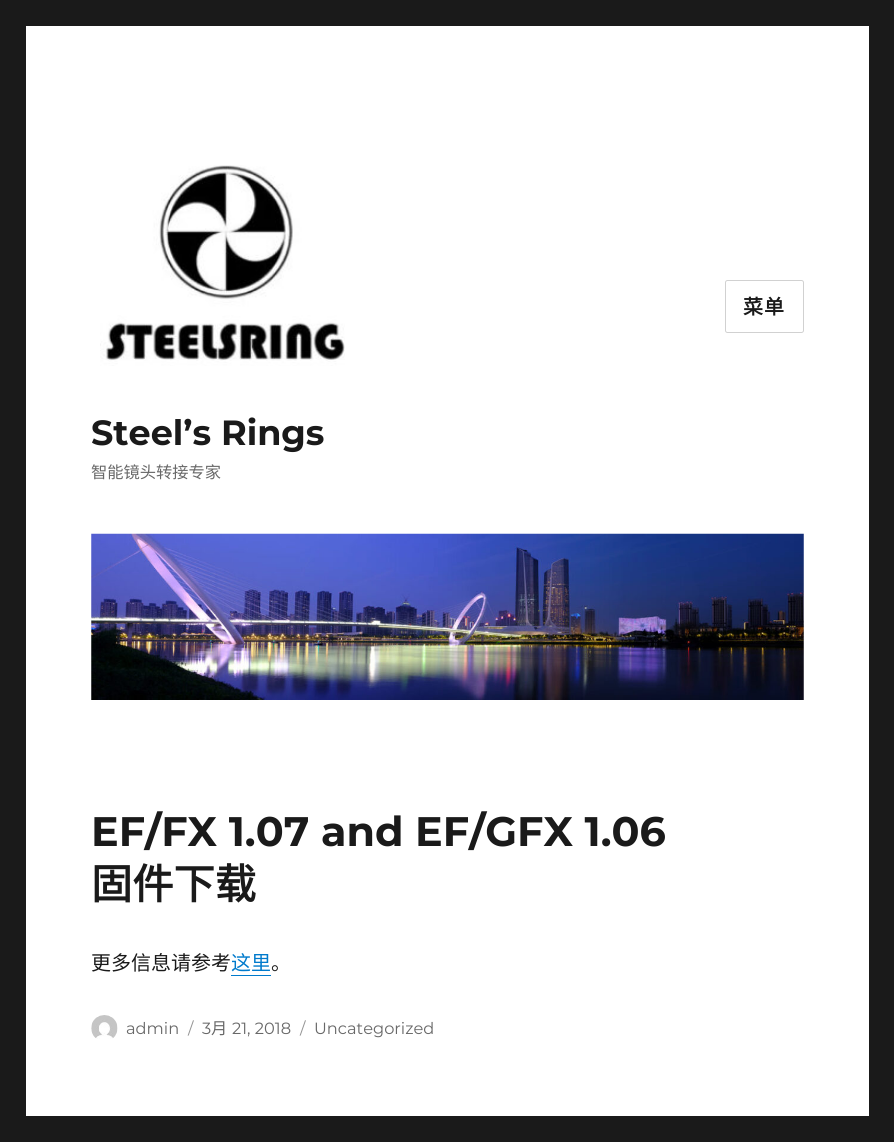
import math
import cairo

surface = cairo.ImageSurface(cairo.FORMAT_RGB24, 894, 1142)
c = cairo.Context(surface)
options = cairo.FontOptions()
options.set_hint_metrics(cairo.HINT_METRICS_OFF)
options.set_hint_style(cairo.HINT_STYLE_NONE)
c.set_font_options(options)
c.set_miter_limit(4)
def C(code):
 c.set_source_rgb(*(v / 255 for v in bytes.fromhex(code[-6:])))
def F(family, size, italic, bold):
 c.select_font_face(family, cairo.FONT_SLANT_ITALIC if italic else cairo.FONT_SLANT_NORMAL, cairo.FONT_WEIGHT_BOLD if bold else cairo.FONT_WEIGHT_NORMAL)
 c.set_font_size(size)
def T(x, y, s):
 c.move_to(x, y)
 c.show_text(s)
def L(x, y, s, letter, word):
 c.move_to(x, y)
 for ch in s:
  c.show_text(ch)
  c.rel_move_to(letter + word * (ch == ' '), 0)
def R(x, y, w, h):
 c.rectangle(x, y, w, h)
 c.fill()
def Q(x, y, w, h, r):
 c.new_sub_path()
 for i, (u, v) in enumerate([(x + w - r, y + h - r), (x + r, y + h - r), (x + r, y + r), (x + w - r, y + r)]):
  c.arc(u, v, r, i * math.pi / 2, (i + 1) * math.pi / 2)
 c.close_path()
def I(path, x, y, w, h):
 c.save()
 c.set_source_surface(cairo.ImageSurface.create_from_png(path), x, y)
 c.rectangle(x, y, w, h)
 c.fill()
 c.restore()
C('1a1a1a')
c.paint()
C('ffffff')
R(26,26,843,1090)
Q(725.5,280.5,78,52,2)
C('d1d1d1')
c.set_line_width(1)
c.stroke()
F('Noto Sans CJK SC',20,0,1)
C('1a1a1a')
L(743,314,'菜单',1,0)
I('1.png',100,165,245,201)
F('Montserrat',35,0,1)
T(91,445,'Steel’s Rings')
F('Noto Sans CJK SC',16.25,0,0)
C('686868')
T(91,478,'智能镜头转接专家')
I('2.png',91,533,713,167)
F('Montserrat',41.25,0,1)
C('1a1a1a')
T(91,846,'EF/FX 1.07 and EF/GFX 1.06')
F('Noto Sans CJK SC',41.25,0,1)
T(91,899,'固件下载')
F('Noto Sans CJK SC',20,0,0)
T(91,970,'更多信息请参考')
C('007acc')
T(231,970,'这里')
c.new_path()
c.move_to(231,951)
c.line_to(231,976)
c.line_to(271,976)
c.line_to(271,975)
c.line_to(231,975)
c.close_path()
c.fill()
C('1a1a1a')
T(271,970,'。')
I('3.png',91,1015,27,24)
F('Montserrat',16.25,0,0)
C('686868')
T(126,1034,'admin')
C('959595')
T(188,1034,'/')
C('686868')
T(202,1034,'3')
F('Noto Sans CJK SC',16.25,0,0)
T(211,1034,'月')
F('Montserrat',16.25,0,0)
T(232,1034,'21, 2018')
C('959595')
T(300,1034,'/')
C('686868')
T(314,1034,'Uncategorized')
surface.write_to_png('o.png')
